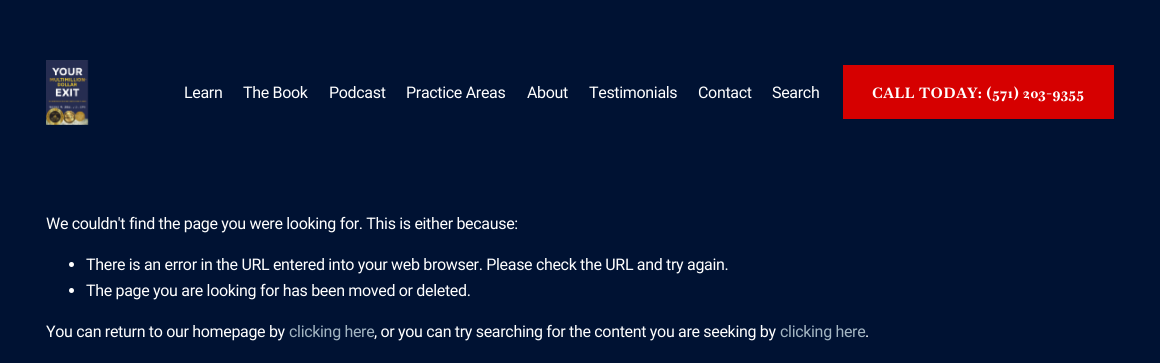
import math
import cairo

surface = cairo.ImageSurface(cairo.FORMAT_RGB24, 1160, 363)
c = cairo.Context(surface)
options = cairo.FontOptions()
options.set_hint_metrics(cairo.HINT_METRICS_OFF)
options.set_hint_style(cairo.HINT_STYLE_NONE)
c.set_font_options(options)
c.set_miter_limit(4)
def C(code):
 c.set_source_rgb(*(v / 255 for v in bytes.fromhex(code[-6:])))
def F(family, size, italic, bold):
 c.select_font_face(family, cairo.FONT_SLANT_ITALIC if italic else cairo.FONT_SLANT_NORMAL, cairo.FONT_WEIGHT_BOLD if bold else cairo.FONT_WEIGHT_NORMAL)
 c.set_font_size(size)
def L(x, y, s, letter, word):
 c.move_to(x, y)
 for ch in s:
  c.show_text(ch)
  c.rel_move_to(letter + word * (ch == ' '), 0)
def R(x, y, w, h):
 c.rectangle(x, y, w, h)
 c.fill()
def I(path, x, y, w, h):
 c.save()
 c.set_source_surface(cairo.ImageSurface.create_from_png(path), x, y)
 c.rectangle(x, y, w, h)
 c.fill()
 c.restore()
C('001233')
c.paint()
I('1.png',46,60,43,65)
F('Roboto',16,0,0)
C('ffffff')
L(184,98,'Learn',-.32,0)
L(243,98,'The Book',-.32,0)
L(329,98,'Podcast',-.32,0)
L(406,98,'Practice Areas',-.32,0)
L(527,98,'About',-.32,0)
L(589,98,'Testimonials',-.32,0)
L(698,98,'Contact',-.32,0)
L(772,98,'Search',-.32,0)
C('d60000')
R(843,65,271,54)
F('Baskervville',14.6,0,1)
C('ffffff')
L(872,98,'CALL TODAY: (571) 203-9355',.6,0)
F('Roboto',16,0,0)
L(46,229,'We couldn\'t find the page you were looking for. This is either because:',-.32,0)
c.new_path()
c.arc(71.5,264.5,2.5,0,2 * math.pi)
c.fill()
L(86,270,'There is an error in the URL entered into your web browser. Please check the URL and try again.',-.32,0)
c.new_path()
c.arc(71.5,290.5,2.5,0,2 * math.pi)
c.fill()
L(86,296,'The page you are looking for has been moved or deleted.',-.32,0)
L(46,337,'You can return to our homepage by',-.32,0)
C('a3b5c2')
L(289,337,'clicking here',-.32,0)
C('ffffff')
L(374,337,', or you can try searching for the content you are seeking by',-.32,0)
C('a3b5c2')
L(780,337,'clicking here',-.32,0)
C('ffffff')
L(865,337,'.',-.32,0)
surface.write_to_png('o.png')
